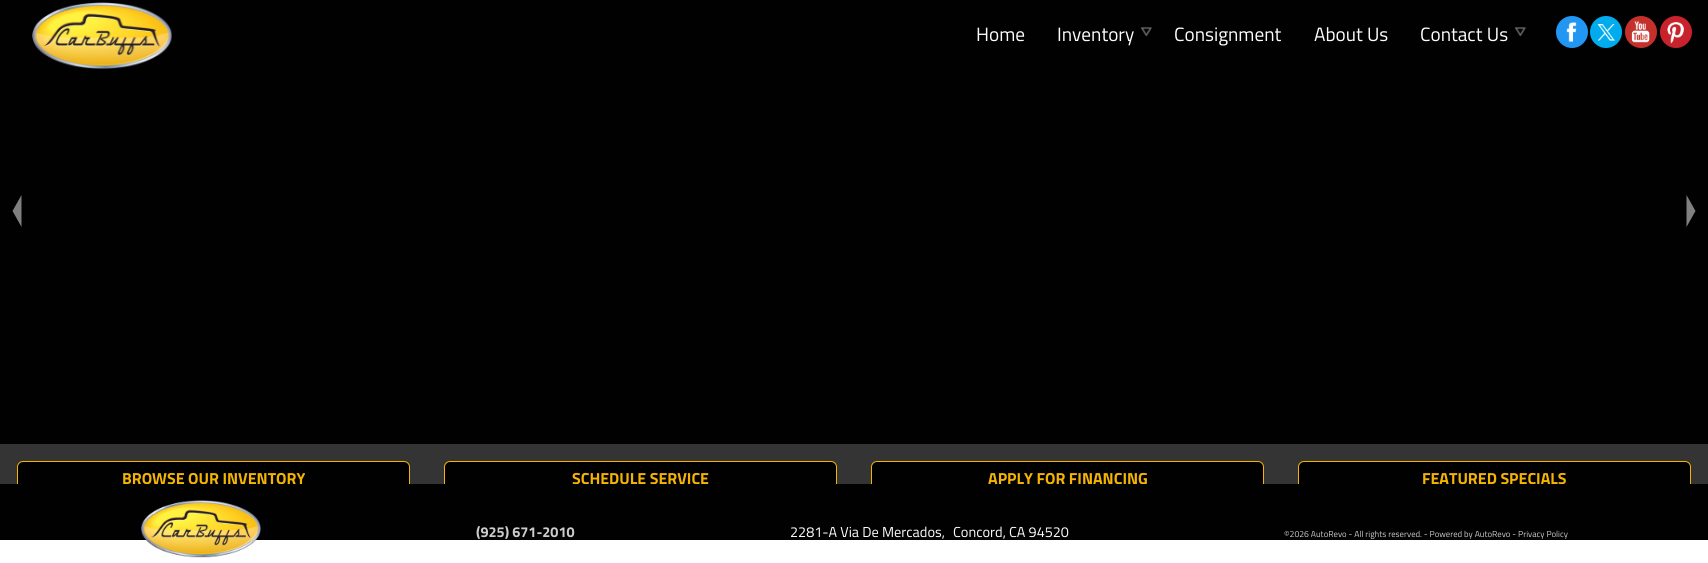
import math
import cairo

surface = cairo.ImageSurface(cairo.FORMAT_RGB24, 1708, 563)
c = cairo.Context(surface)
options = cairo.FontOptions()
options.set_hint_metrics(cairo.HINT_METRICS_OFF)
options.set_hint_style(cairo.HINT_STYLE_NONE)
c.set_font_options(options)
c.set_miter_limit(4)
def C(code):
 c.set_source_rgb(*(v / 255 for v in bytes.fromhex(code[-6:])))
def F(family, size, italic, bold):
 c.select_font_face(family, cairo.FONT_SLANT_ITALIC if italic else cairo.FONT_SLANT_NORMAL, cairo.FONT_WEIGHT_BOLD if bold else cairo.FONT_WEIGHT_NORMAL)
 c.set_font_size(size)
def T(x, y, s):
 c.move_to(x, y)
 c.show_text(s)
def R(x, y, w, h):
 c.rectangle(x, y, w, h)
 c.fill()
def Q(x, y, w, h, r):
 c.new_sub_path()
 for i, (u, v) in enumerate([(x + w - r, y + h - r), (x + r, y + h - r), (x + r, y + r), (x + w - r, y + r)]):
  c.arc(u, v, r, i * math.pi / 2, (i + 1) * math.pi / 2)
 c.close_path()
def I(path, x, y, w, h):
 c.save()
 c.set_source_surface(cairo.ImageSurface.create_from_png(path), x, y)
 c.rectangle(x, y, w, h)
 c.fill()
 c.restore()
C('ffffff')
c.paint()
C('010101')
R(0,0,1708,444)
I('1.png',32,2,140,68)
C('2196f3')
c.arc(1572,32,16,0,2 * math.pi)
c.fill()
I('2.png',1566,22,11,20)
C('00acee')
c.arc(1606,32,16,0,2 * math.pi)
c.fill()
I('3.png',1597,24,19,17)
C('c4302b')
c.arc(1641,32,16,0,2 * math.pi)
c.fill()
I('4.png',1631,21,19,22)
C('c8232c')
c.arc(1676,32,16,0,2 * math.pi)
c.fill()
I('5.png',1667,22,17,22)
F('Titillium Web',19.25,0,0)
C('fefefe')
T(976,41,'Home')
T(1057,41,'Inventory')
I('6.png',1141,27,11,10)
T(1174,41,'Consignment')
T(1314,41,'About Us')
T(1420,41,'Contact Us')
I('6.png',1515,27,11,10)
C('808080')
c.new_path()
c.move_to(21.5,227)
c.line_to(12.5,211)
c.line_to(21.5,195)
c.close_path()
c.fill()
c.new_path()
c.move_to(1686.5,195)
c.line_to(1695.5,211)
c.line_to(1686.5,227)
c.close_path()
c.fill()
C('343434')
R(0,444,1708,40)
C('010101')
Q(17.5,461.5,392,33,5.5)
c.fill_preserve()
C('f5b404')
c.set_line_width(1)
c.stroke()
F('Titillium Web',16,0,1)
T(122,484,'BROWSE OUR INVENTORY')
C('010101')
Q(444.5,461.5,392,33,5.5)
c.fill_preserve()
C('f5b404')
c.stroke()
T(572,484,'SCHEDULE SERVICE')
C('010101')
Q(871.5,461.5,392,33,5.5)
c.fill_preserve()
C('f5b404')
c.stroke()
T(988,484,'APPLY FOR FINANCING')
C('010101')
Q(1298.5,461.5,392,33,5.5)
c.fill_preserve()
C('f5b404')
c.stroke()
T(1422,484,'FEATURED SPECIALS')
C('010101')
R(0,484,1708,56)
I('7.png',141,500,120,58)
F('Titillium Web',14.4,0,1)
C('cccccc')
T(476,537,'(925) 671-2010')
F('Titillium Web',14.4,0,0)
C('fefefe')
T(790,537,'2281-A Via De Mercados,')
T(953,537,'Concord, CA 94520')
F('Titillium Web',8.65,0,0)
C('cccccc')
T(1284,537,'©2026 AutoRevo - All rights reserved. - Powered by AutoRevo - Privacy Policy')
surface.write_to_png('o.png')
